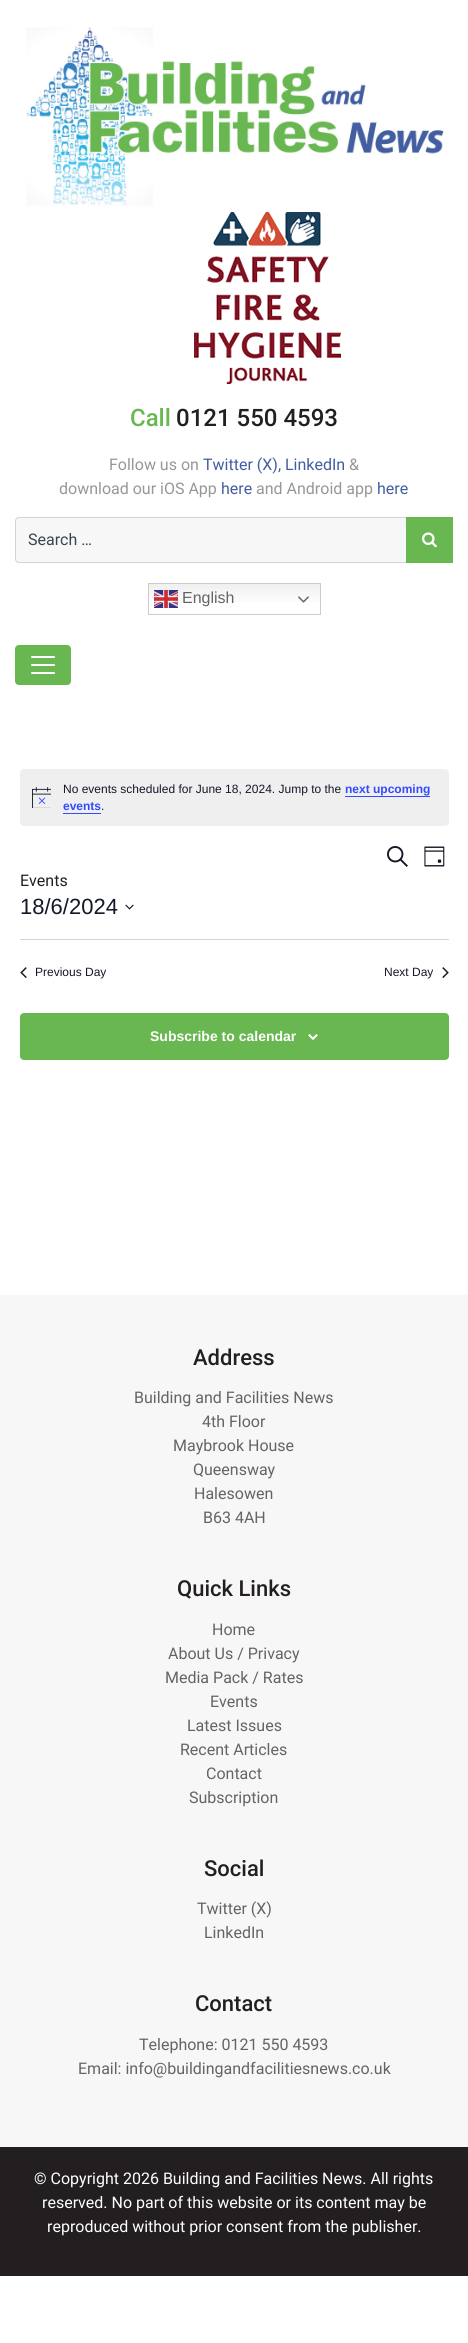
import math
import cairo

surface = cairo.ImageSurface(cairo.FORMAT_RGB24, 468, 2343)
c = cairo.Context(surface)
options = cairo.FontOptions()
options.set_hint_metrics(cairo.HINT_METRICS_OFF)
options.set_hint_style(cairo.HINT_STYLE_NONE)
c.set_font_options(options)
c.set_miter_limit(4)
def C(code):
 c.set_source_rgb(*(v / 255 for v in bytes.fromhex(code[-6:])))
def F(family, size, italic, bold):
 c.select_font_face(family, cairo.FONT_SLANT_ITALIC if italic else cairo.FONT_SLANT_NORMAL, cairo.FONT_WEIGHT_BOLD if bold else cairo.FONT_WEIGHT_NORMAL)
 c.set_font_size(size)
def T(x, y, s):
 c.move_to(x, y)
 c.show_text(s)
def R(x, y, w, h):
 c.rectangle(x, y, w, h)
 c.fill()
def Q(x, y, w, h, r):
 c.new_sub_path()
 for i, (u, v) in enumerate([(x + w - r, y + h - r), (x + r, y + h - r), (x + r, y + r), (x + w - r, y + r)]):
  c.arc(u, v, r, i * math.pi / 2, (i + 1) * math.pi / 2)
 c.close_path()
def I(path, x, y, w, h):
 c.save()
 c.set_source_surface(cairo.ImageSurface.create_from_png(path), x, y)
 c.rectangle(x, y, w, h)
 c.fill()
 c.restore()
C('ffffff')
c.paint()
I('1.png',26,27,418,179)
I('2.png',192,212,149,172)
F('Roboto Medium',24,0,0)
C('69b751')
T(130,426,'Call')
C('231f20')
T(176,426,'0121 550 4593')
F('Roboto',16,0,0)
C('989696')
T(109,470,'Follow us on')
C('435da1')
T(203,470,'Twitter (X), LinkedIn')
C('989696')
T(349,470,'&')
T(59,494,'download our iOS App')
C('435da1')
T(221,494,'here')
C('989696')
T(256,494,'and Android app')
C('435da1')
T(377,494,'here')
C('f7f7f7')
c.new_path()
c.move_to(19,517.5)
c.line_to(406.5,517.5)
c.line_to(406.5,562.5)
c.line_to(19,562.5)
c.curve_to(17,562.5,15.5,561,15.5,559)
c.line_to(15.5,521)
c.curve_to(15.5,519,17,517.5,19,517.5)
c.close_path()
c.fill_preserve()
C('ced4da')
c.set_line_width(1)
c.stroke()
C('374550')
T(28,545,'Search …')
C('69b751')
R(406,517,47,46)
I('3.png',422,532,15,16)
gradient = cairo.LinearGradient(235,583,235,615)
gradient.add_color_stop_rgba(0,0.937,0.937,0.937,1)
gradient.add_color_stop_rgba(.7,1,1,1,1)
c.set_source(gradient)
R(149,584,171,18)
c.rectangle(148.5,583.5,172,31)
C('cccccc')
c.stroke()
I('4.png',154,590,24,18)
F('Liberation Sans',16,0,0)
C('646464')
T(182,603,'English')
I('5.png',298,596,11,7)
C('69b751')
Q(15.5,645.5,55,39,3.5)
c.fill_preserve()
c.stroke()
I('6.png',31,656,24,18)
C('efeff0')
Q(20,769,429,57,4)
c.fill()
I('7.png',32,787,19,21)
F('Liberation Sans',12,0,0)
C('141827')
T(63,793,'No events scheduled for June 18, 2024. Jump to the')
F('Liberation Sans',12,0,1)
C('334aff')
T(345,793,'next upcoming')
R(345,796,85,1)
T(63,810,'events')
R(63,813,38,1)
F('Liberation Sans',12,0,0)
C('141827')
T(101,810,'.')
I('8.png',387,846,21,21)
I('9.png',424,846,21,21)
F('Roboto',16,0,0)
C('231f20')
T(20,886,'Events')
F('Liberation Sans',22,0,0)
C('141827')
T(20,914,'18/6/2024')
I('10.png',125,904,9,6)
C('d5d5d5')
R(20,939,429,1)
I('11.png',20,967,7,11)
F('Liberation Sans',12,0,0)
C('141827')
T(35,976,'Previous Day')
T(384,976,'Next Day')
I('12.png',442,967,7,11)
C('69b751')
Q(20.5,1013.5,428,46,3.5)
c.fill_preserve()
c.stroke()
F('Liberation Sans',14,0,1)
C('ffffff')
T(150,1041,'Subscribe to calendar')
I('13.png',308,1034,10,6)
C('f7f7f7')
R(0,1295,468,852)
F('Roboto Medium',22,0,0)
C('231f20')
T(193,1365,'Address')
F('Roboto',16,0,0)
C('646464')
T(134,1403,'Building and Facilities News')
T(202,1427,'4th Floor')
T(173,1451,'Maybrook House')
T(193,1475,'Queensway')
T(194,1499,'Halesowen')
T(203,1523,'B63 4AH')
F('Roboto Medium',22,0,0)
C('231f20')
T(177,1596,'Quick Links')
F('Roboto',16,0,0)
C('646464')
T(212,1635,'Home')
T(168,1659,'About Us / Privacy')
T(165,1683,'Media Pack / Rates')
T(210,1707,'Events')
T(187,1731,'Latest Issues')
T(180,1755,'Recent Articles')
T(206,1779,'Contact')
T(189,1803,'Subscription')
F('Roboto Medium',22,0,0)
C('231f20')
T(204,1876,'Social')
F('Roboto',16,0,0)
C('646464')
T(197,1914,'Twitter (X)')
T(204,1938,'LinkedIn')
F('Roboto Medium',22,0,0)
C('231f20')
T(195,2011,'Contact')
F('Roboto',16,0,0)
C('646464')
T(139,2050,'Telephone: 0121 550 4593')
T(78,2074,'Email: info@buildingandfacilitiesnews.co.uk')
C('231f20')
R(0,2147,468,129)
C('ffffff')
T(34,2184,'© Copyright 2026 Building and Facilities News. All rights')
T(42,2208,'reserved. No part of this website or its content may be')
T(47,2232,'reproduced without prior consent from the publisher.')
surface.write_to_png('o.png')
